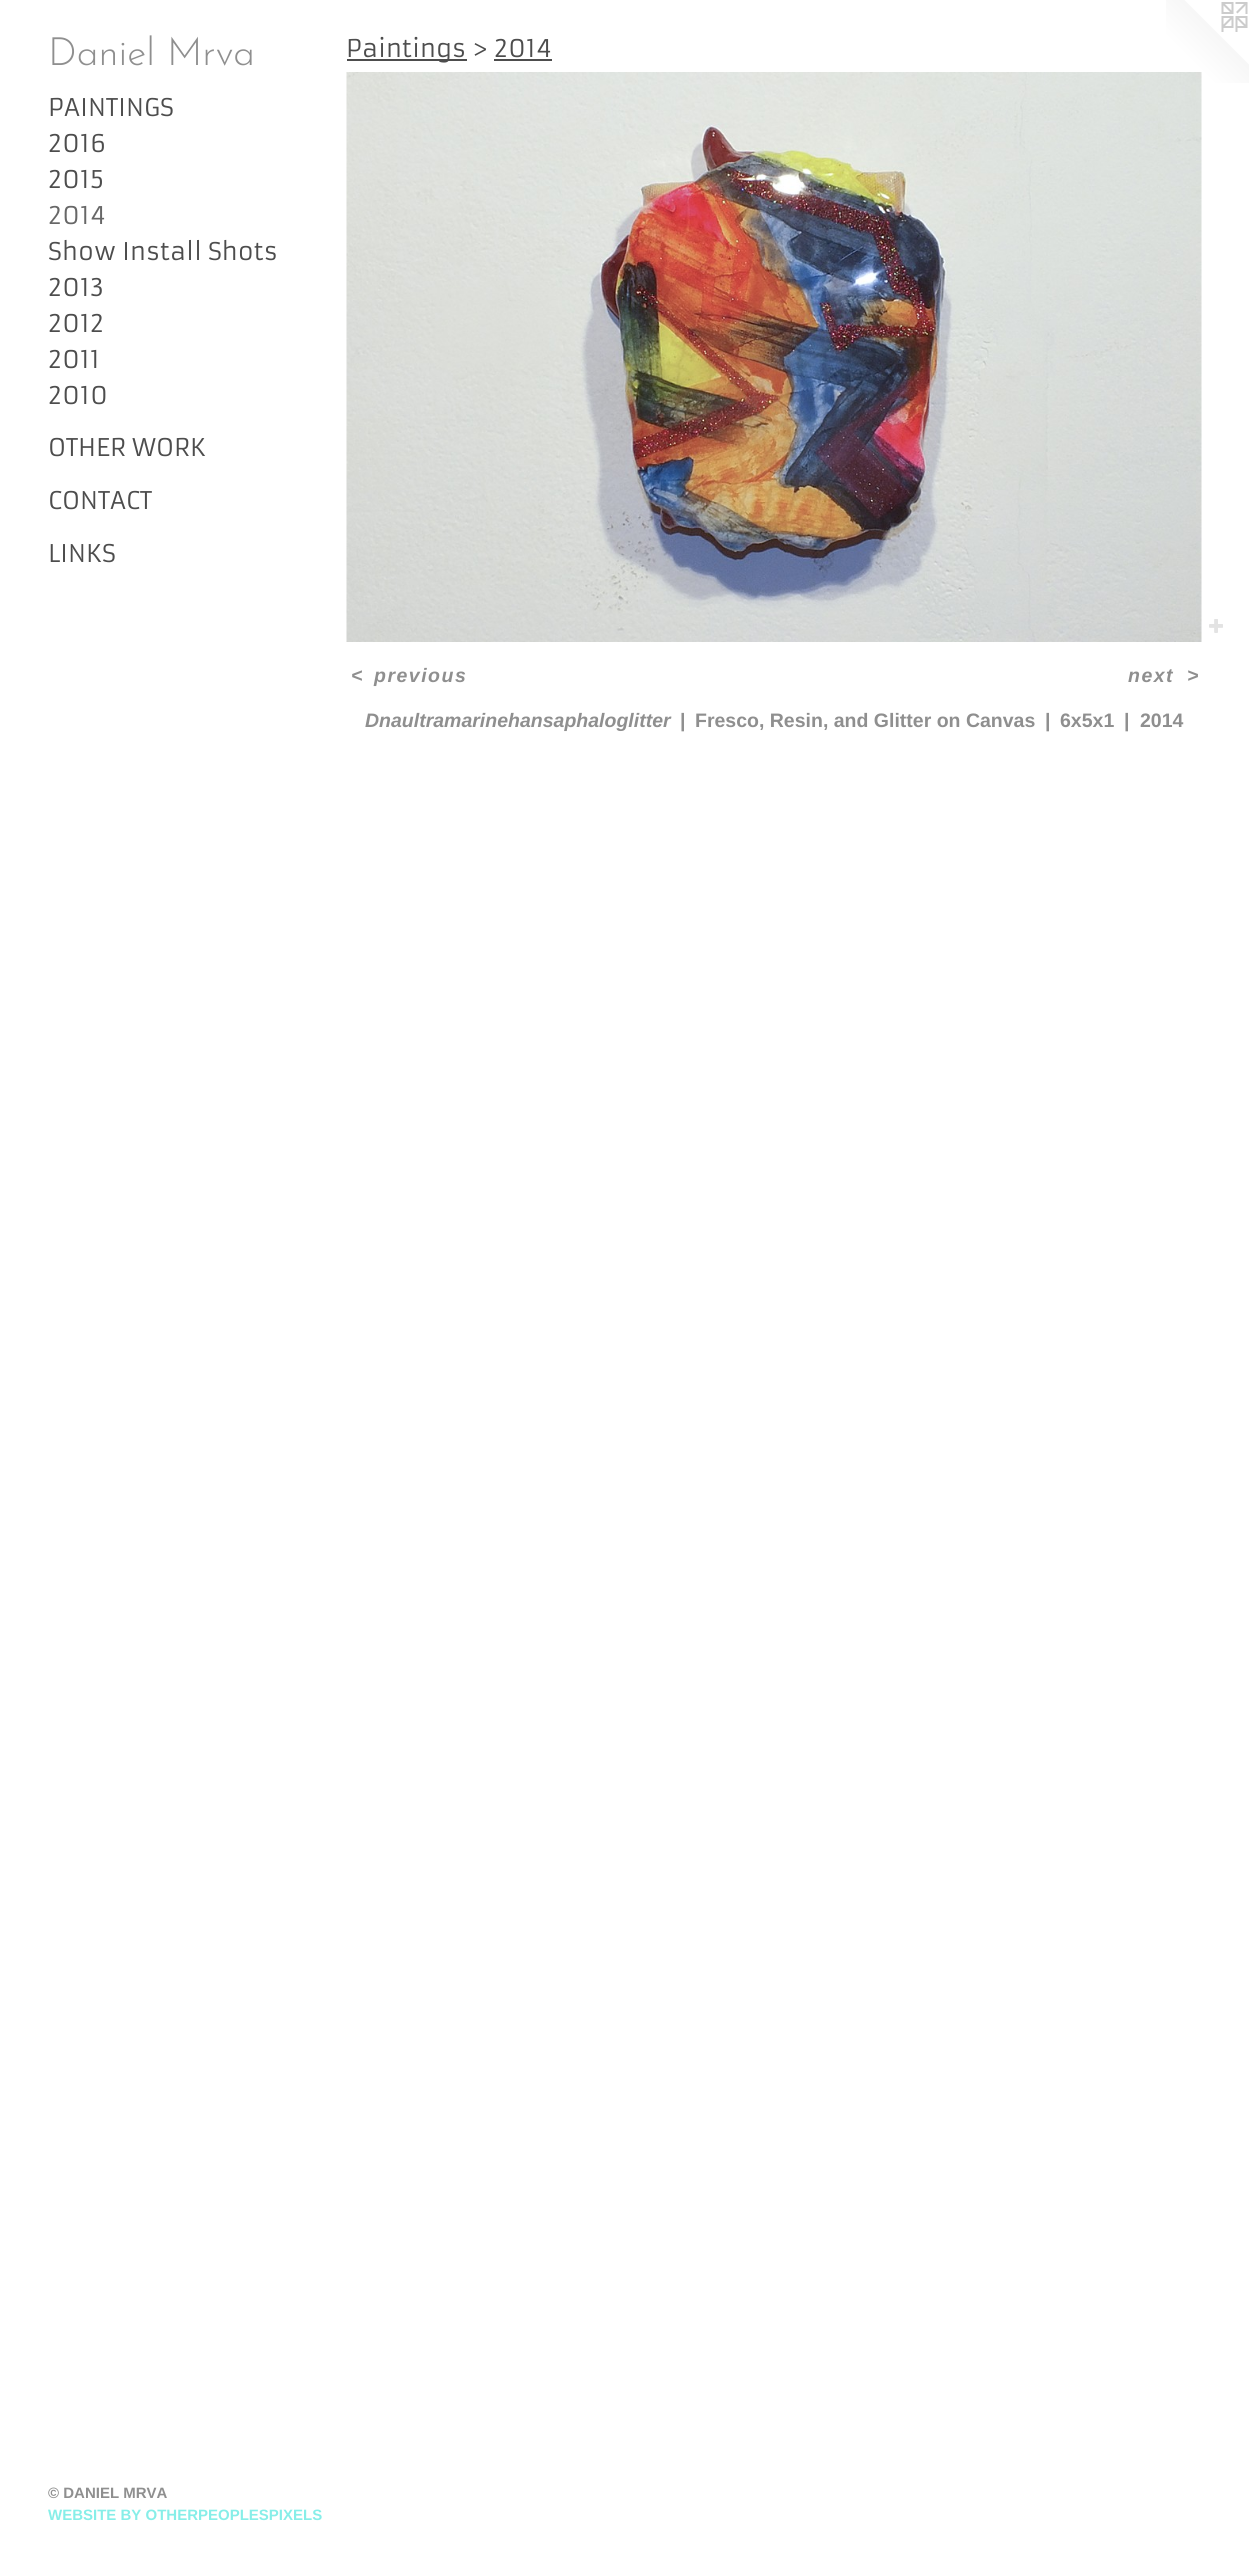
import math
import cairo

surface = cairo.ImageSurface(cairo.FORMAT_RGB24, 1249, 2560)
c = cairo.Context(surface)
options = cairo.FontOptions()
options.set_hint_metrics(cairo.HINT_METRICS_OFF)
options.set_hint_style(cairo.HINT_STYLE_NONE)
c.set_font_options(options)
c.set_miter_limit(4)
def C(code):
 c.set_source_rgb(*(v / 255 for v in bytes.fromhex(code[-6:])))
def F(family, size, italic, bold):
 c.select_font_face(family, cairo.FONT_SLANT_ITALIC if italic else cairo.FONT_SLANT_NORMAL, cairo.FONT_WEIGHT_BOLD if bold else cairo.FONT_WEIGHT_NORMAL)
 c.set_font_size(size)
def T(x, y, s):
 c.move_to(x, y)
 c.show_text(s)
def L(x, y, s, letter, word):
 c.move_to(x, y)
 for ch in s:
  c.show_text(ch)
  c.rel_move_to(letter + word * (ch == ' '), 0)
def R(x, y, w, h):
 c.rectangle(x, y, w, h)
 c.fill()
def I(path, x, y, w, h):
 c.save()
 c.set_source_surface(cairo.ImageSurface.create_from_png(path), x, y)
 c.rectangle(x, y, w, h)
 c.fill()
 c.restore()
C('ffffff')
c.paint()
F('Josefin Sans Thin',39,0,0)
C('8f8f8f')
T(48,65,'Daniel Mrva')
F('Armata',24,0,0)
C('4d4d4d')
T(48,116,'PAINTINGS')
T(48,152,'2016')
T(48,188,'2015')
C('676767')
T(48,224,'2014')
C('4d4d4d')
T(48,260,'Show Install Shots')
T(48,296,'2013')
T(48,332,'2012')
T(48,368,'2011')
T(48,404,'2010')
T(48,456,'OTHER WORK')
T(48,509,'CONTACT')
T(48,562,'LINKS')
F('Liberation Sans',15,0,1)
C('8f8f8f')
T(48,2498,'© DANIEL MRVA')
C('87eee8')
T(48,2520,'WEBSITE BY OTHERPEOPLESPIXELS')
C('4d4d4d')
R(347,59,120,2)
F('Armata',24,0,0)
T(346,57,'Paintings > 2014')
R(494,59,58,2)
I('3.png',1166,0,83,83)
I('1.png',346,72,856,570)
I('2.png',1209,619,14,14)
F('Liberation Sans',19.5,1,1)
C('8f8f8f')
L(351,682,'<',1.5,0)
L(374,682,'previous',1.5,0)
L(1128,682,'next',1.5,0)
L(1187,682,'>',1.5,0)
T(365,727,'Dnaultramarinehansaphaloglitter')
F('Liberation Sans',19.5,0,1)
T(680,727,'|')
T(695,727,'Fresco, Resin, and Glitter on Canvas')
T(1045,727,'|')
T(1060,727,'6x5x1')
T(1124,727,'|')
T(1140,727,'2014')
surface.write_to_png('o.png')
